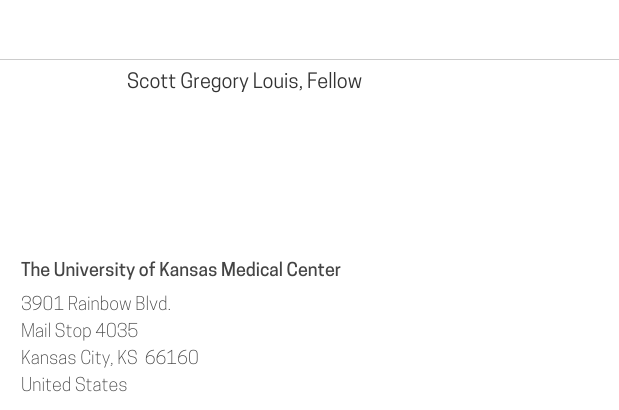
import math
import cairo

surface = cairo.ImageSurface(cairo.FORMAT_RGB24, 619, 410)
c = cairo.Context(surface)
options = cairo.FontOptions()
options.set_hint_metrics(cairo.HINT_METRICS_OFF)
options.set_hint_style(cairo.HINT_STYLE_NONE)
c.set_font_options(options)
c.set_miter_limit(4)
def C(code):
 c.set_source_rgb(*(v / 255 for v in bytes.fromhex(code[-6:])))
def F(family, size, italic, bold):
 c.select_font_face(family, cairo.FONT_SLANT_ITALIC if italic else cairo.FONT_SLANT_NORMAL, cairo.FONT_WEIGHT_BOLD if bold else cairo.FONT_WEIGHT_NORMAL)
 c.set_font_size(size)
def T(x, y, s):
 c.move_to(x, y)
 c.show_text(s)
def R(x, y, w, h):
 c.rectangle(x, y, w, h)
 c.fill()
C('ffffff')
c.paint()
C('cccccc')
R(0,59,619,1)
F('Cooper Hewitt',20,0,0)
C('333333')
T(127,88,'Scott Gregory Louis, Fellow')
F('Cooper Hewitt Medium',18,0,0)
C('444444')
T(21,276,'The University of Kansas Medical Center')
F('Cooper Hewitt Light',18,0,0)
T(21,310,'3901 Rainbow Blvd.')
T(21,337,'Mail Stop 4035')
T(21,364,'Kansas City, KS  66160')
T(21,391,'United States')
surface.write_to_png('o.png')
